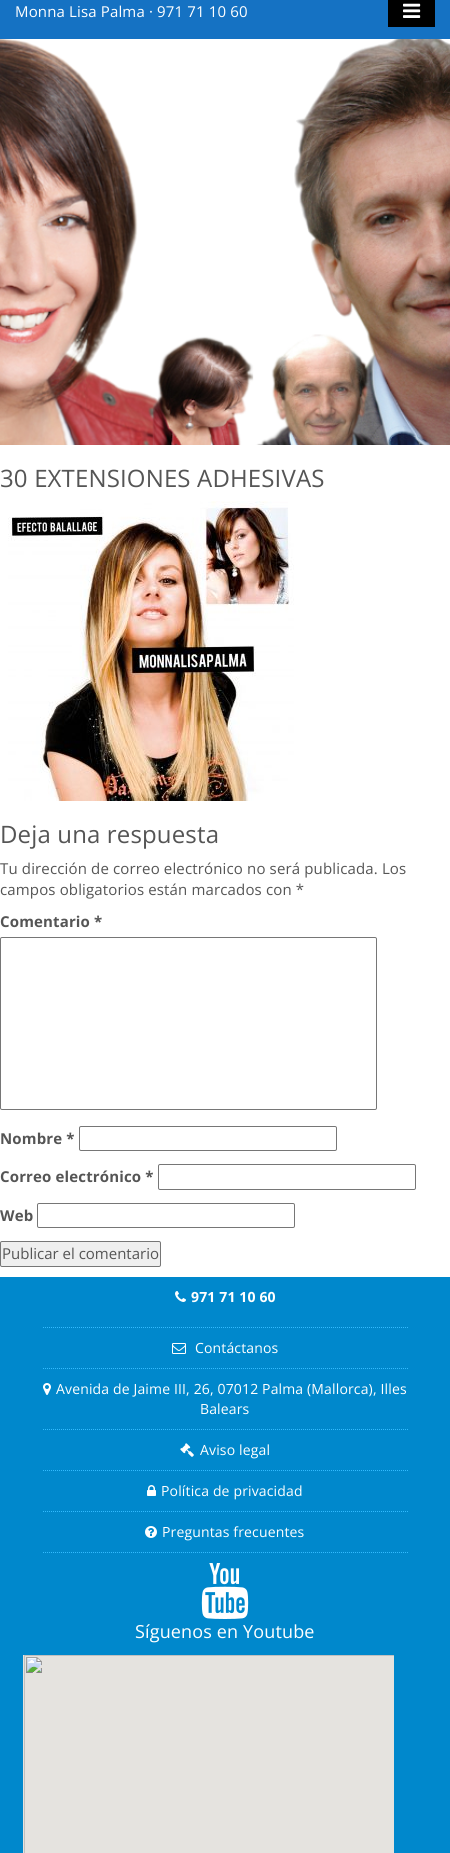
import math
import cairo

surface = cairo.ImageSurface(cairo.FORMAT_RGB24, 450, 1853)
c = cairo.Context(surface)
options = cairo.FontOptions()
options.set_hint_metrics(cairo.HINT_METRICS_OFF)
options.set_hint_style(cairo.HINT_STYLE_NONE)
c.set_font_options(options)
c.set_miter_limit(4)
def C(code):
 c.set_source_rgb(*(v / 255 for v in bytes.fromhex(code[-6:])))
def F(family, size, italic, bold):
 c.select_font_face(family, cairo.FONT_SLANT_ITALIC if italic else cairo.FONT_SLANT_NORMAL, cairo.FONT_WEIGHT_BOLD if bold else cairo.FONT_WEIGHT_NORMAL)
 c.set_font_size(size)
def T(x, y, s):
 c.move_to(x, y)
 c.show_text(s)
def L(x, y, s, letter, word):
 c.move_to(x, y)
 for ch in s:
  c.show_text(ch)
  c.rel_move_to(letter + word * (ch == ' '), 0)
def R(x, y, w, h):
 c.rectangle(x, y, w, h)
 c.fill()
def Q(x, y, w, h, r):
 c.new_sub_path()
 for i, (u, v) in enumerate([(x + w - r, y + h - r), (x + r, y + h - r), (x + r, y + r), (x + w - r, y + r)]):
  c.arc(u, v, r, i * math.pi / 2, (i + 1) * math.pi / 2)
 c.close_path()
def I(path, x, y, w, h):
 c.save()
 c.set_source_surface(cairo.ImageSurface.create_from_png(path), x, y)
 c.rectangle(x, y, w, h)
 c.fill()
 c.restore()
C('ffffff')
c.paint()
C('1572c3')
R(0,0,450,39)
F('Open Sans',15,0,0)
C('ffffff')
L(15,17,'Monna Lisa Palma · 971 71 10 60',.15,0)
C('000000')
R(388,0,47,27)
I('1.png',403,3,18,15)
I('2.png',0,39,450,406)
F('Open Sans',24,0,0)
C('555555')
L(0,487,'30 EXTENSIONES ADHESIVAS',.15,0)
I('3.png',8,501,286,300)
L(0,843,'Deja una respuesta',.15,0)
F('Open Sans',15,0,0)
L(0,874,'Tu dirección de correo electrónico no será publicada. Los',.15,0)
L(0,895,'campos obligatorios están marcados con *',.15,0)
F('Open Sans',15,0,1)
L(0,927,'Comentario *',.15,0)
Q(.5,937.5,376,172,1.5)
C('767676')
c.set_line_width(1)
c.stroke()
C('555555')
L(0,1144,'Nombre *',.15,0)
Q(79.5,1126.5,257,24,1.5)
C('767676')
c.stroke()
C('555555')
L(0,1182,'Correo electrónico *',.15,0)
Q(158.5,1164.5,257,25,1.5)
C('767676')
c.stroke()
C('555555')
L(0,1221,'Web',.15,0)
Q(37.5,1203.5,257,24,1.5)
C('767676')
c.stroke()
C('efefef')
Q(.5,1241.5,160,25,1.5)
c.fill_preserve()
C('767676')
c.stroke()
F('Open Sans',15,0,0)
C('555555')
T(2,1259,'Publicar el comentario')
C('0088cc')
R(0,1277,450,576)
c.new_path()
c.move_to(43,1327.5)
c.line_to(408,1327.5)
C('33bbff')
c.set_dash([1,1])
c.stroke()
I('4.png',175,1291,11,11)
F('Open Sans',14,0,1)
C('ffffff')
L(191,1302,'971 71 10 60',.15,0)
c.new_path()
c.move_to(43,1368.5)
c.line_to(408,1368.5)
C('33bbff')
c.stroke()
I('5.png',172,1343,14,11)
F('Open Sans',14,0,0)
C('ffffff')
L(195,1353,'Contáctanos',.15,0)
c.new_path()
c.move_to(43,1429.5)
c.line_to(408,1429.5)
C('33bbff')
c.stroke()
I('6.png',43,1383,8,12)
C('ffffff')
L(56,1394,'Avenida de Jaime III, 26, 07012 Palma (Mallorca), Illes',.15,0)
L(200,1414,'Balears',.15,0)
c.new_path()
c.move_to(43,1470.5)
c.line_to(408,1470.5)
C('33bbff')
c.stroke()
I('7.png',180,1443,14,14)
C('ffffff')
L(200,1455,'Aviso legal',.15,0)
c.new_path()
c.move_to(43,1511.5)
c.line_to(408,1511.5)
C('33bbff')
c.stroke()
I('8.png',147,1485,9,11)
C('ffffff')
L(161,1496,'Política de privacidad',.15,0)
c.new_path()
c.move_to(43,1552.5)
c.line_to(408,1552.5)
C('33bbff')
c.stroke()
I('9.png',145,1526,12,12)
C('ffffff')
L(162,1537,'Preguntas frecuentes',.15,0)
I('10.png',201,1563,48,56)
F('Open Sans',18,0,0)
L(135,1638,'Síguenos en Youtube',.15,0)
I('11.png',23,1655,371,198)
surface.write_to_png('o.png')
